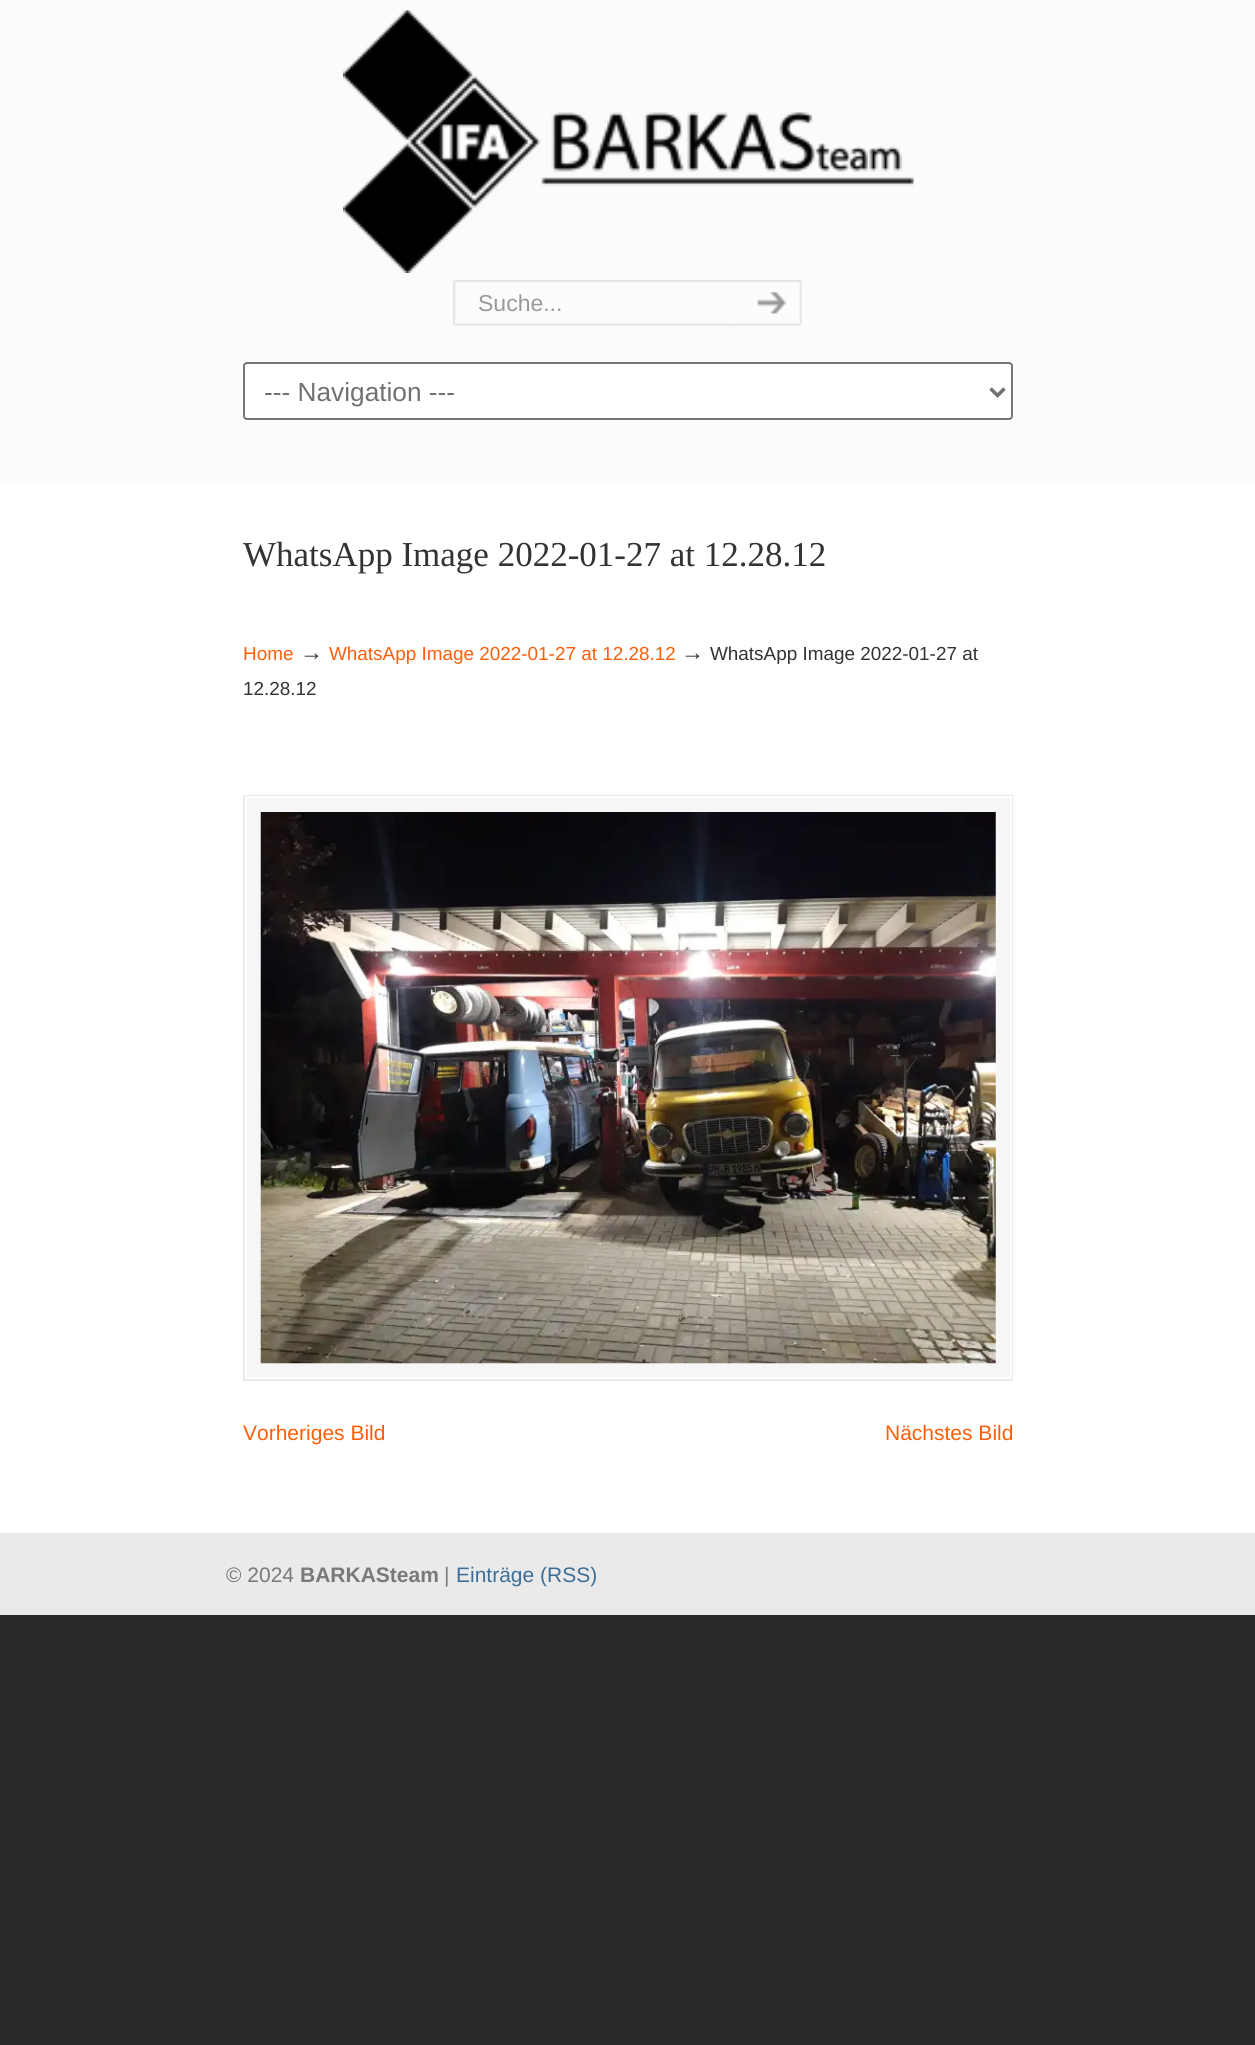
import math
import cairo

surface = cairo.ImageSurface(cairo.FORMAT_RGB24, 1255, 2045)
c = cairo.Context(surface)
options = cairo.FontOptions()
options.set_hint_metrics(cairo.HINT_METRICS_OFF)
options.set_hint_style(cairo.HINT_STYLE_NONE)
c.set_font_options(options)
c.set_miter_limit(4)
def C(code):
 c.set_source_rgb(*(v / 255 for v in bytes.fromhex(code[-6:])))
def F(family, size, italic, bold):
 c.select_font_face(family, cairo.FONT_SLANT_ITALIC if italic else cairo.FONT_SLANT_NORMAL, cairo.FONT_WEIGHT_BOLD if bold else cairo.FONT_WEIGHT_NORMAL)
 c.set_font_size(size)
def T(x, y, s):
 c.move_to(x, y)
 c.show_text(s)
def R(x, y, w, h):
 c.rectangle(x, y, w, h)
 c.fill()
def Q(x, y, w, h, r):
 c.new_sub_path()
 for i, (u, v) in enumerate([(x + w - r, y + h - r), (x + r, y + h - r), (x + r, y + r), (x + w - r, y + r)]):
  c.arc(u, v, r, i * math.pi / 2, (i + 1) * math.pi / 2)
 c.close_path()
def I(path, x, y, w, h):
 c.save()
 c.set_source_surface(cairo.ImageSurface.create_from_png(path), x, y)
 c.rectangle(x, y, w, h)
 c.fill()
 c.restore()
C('282828')
c.paint()
C('fbfbfb')
R(0,0,1255,485)
I('1.png',343,10,571,263)
I('2.png',453,280,279,46)
F('Liberation Sans',23,0,0)
C('999999')
T(478,311,'Suche...')
I('3.png',731,280,71,46)
C('ffffff')
Q(244,363,768,56,3)
c.fill_preserve()
C('767676')
c.stroke()
c.new_path()
c.move_to(990.5,388.5)
c.line_to(997.5,395.5)
c.line_to(1004.5,388.5)
C('717171')
c.set_line_width(3.5)
c.stroke()
F('Liberation Sans',26.25,0,0)
T(264,401,'--- Navigation ---')
C('ffffff')
R(0,485,1255,1048)
F('Liberation Serif',35,0,0)
C('333333')
T(243,566,'WhatsApp Image 2022-01-27 at 12.28.12')
F('Liberation Sans',18.9,0,0)
C('fe5e08')
T(243,660,'Home')
F('Liberation Sans',23,0,0)
C('333333')
T(300,660,'→')
F('Liberation Sans',18.9,0,0)
C('fe5e08')
T(329,660,'WhatsApp Image 2022-01-27 at 12.28.12')
F('Liberation Sans',23,0,0)
C('333333')
T(681,660,'→')
F('Liberation Sans',18.9,0,0)
T(710,660,'WhatsApp Image 2022-01-27 at')
T(243,695,'12.28.12')
C('f6f6f6')
R(247,798,763,579)
c.rectangle(244,796,768,584)
C('eaeaea')
c.set_line_width(2)
c.stroke()
c.rectangle(246,797,765,581)
C('ffffff')
c.stroke()
I('4.png',260,812,736,552)
F('Liberation Sans',21,0,0)
C('fe5e08')
T(243,1440,'Vorheriges Bild')
T(885,1440,'Nächstes Bild')
C('eaeaea')
R(0,1533,1255,82)
C('797979')
T(226,1582,'© 2024')
F('Liberation Sans',21,0,1)
T(300,1582,'BARKASteam')
F('Liberation Sans',21,0,0)
T(444,1582,'|')
C('3d6e97')
T(456,1582,'Einträge (RSS)')
surface.write_to_png('o.png')
